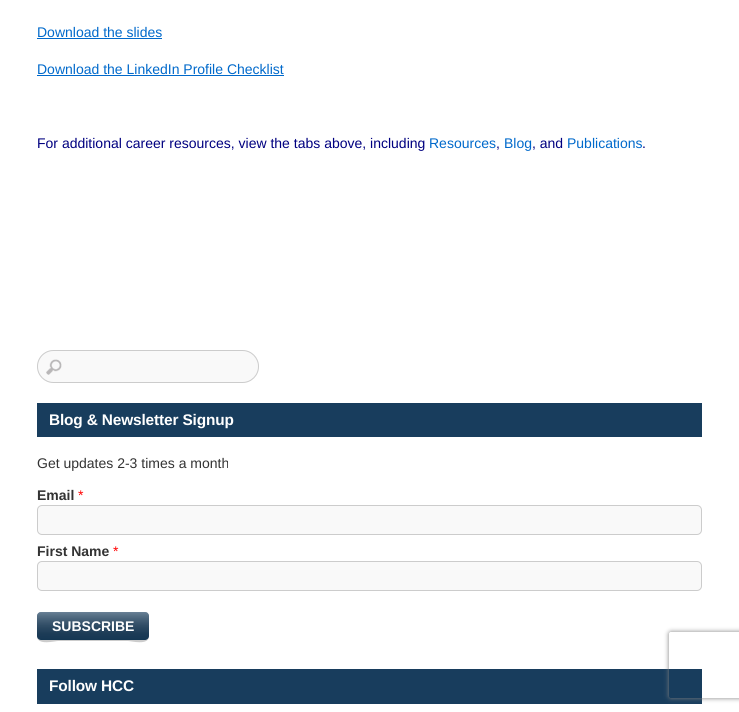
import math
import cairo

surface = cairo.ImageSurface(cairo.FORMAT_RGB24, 739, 712)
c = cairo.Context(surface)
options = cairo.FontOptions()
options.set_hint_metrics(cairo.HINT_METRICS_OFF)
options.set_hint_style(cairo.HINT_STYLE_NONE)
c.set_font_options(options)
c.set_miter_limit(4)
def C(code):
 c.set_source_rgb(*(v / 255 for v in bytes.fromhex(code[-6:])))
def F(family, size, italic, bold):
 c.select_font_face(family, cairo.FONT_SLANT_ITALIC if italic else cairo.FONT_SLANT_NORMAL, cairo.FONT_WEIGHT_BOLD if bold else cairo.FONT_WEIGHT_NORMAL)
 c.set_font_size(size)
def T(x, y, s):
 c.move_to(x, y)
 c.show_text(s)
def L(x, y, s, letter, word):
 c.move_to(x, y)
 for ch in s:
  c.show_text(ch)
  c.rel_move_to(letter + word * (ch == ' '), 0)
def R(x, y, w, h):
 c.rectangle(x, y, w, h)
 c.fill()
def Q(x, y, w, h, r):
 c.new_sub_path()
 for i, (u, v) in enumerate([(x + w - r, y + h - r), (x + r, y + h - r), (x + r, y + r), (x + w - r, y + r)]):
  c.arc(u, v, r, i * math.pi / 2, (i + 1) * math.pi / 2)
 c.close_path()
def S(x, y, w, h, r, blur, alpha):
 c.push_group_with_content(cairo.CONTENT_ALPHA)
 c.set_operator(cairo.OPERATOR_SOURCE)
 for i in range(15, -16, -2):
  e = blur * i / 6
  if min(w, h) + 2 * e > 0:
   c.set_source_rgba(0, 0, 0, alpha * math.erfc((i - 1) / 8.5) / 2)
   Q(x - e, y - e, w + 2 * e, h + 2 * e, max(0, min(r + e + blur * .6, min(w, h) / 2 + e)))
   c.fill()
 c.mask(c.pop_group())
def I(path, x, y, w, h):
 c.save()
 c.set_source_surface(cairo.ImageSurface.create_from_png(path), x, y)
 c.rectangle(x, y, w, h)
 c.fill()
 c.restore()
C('ffffff')
c.paint()
F('Liberation Sans',14,0,0)
C('0069cb')
T(37,37,'Download the slides')
R(37,38,125,1)
T(37,74,'Download the LinkedIn Profile Checklist')
R(37,75,247,1)
C('000080')
T(37,148,'For additional career resources, view the tabs above, including')
C('0069cb')
T(429,148,'Resources')
C('000080')
T(496,148,',')
C('0069cb')
T(504,148,'Blog')
C('000080')
T(532,148,', and')
C('0069cb')
T(567,148,'Publications')
C('000080')
T(642,148,'.')
C('f9f9f9')
Q(37,350,222,33,16.5)
c.fill()
I('1.png',46,359,16,16)
Q(37.5,350.5,221,32,16)
C('cccccc')
c.set_line_width(1)
c.stroke()
C('183d5d')
R(37,403,665,34)
F('Liberation Sans',15.4,0,1)
C('ffffff')
L(49,425,'Blog & Newsletter Signup',-.15,0)
F('Liberation Sans',14,0,0)
C('333333')
T(37,468,'Get updates 2-3 times a month')
F('Liberation Sans',14,0,1)
T(37,500,'Email')
F('Liberation Sans',14,0,0)
C('ff0000')
T(78,500,'*')
C('f9f9f9')
Q(37.5,505.5,664,29,4.5)
c.fill_preserve()
C('cccccc')
c.stroke()
F('Liberation Sans',14,0,1)
C('333333')
T(37,556,'First Name')
F('Liberation Sans',14,0,0)
C('ff0000')
T(113,556,'*')
C('f9f9f9')
Q(37.5,561.5,664,29,4.5)
c.fill_preserve()
C('cccccc')
c.stroke()
c.new_path()
c.move_to(37,636)
c.curve_to(37,646,55,641,58,641)
c.line_to(128,641)
c.curve_to(131,641,149,646,149,636)
c.curve_to(149,638,147,640,145,640)
c.line_to(41,640)
c.curve_to(39,640,37,638,37,636)
c.close_path()
c.fill()
C('183d5d')
Q(37,612,112,28,4)
c.fill()
gradient = cairo.LinearGradient(93,612,93,640)
gradient.add_color_stop_rgba(0,1,1,1,.35)
gradient.add_color_stop_rgba(1,0,0,0,.1)
c.set_source(gradient)
Q(37,612,112,28,4)
c.fill()
F('Liberation Sans',14,0,1)
C('ffffff')
T(52,631,'SUBSCRIBE')
C('183d5d')
R(37,669,665,35)
c.save()
c.set_fill_rule(cairo.FILL_RULE_EVEN_ODD)
c.new_path()
c.move_to(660,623)
c.line_to(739,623)
c.line_to(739,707)
c.line_to(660,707)
c.close_path()
c.move_to(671,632)
c.line_to(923,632)
c.curve_to(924,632,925,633,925,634)
c.line_to(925,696)
c.curve_to(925,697,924,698,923,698)
c.line_to(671,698)
c.curve_to(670,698,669,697,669,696)
c.line_to(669,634)
c.curve_to(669,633,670,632,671,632)
c.close_path()
c.clip()
C('808080')
S(669,632,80,66,2,2.5,1)
c.restore()
F('Liberation Sans',15.4,0,1)
C('ffffff')
L(49,691,'Follow HCC',-.15,0)
surface.write_to_png('o.png')
